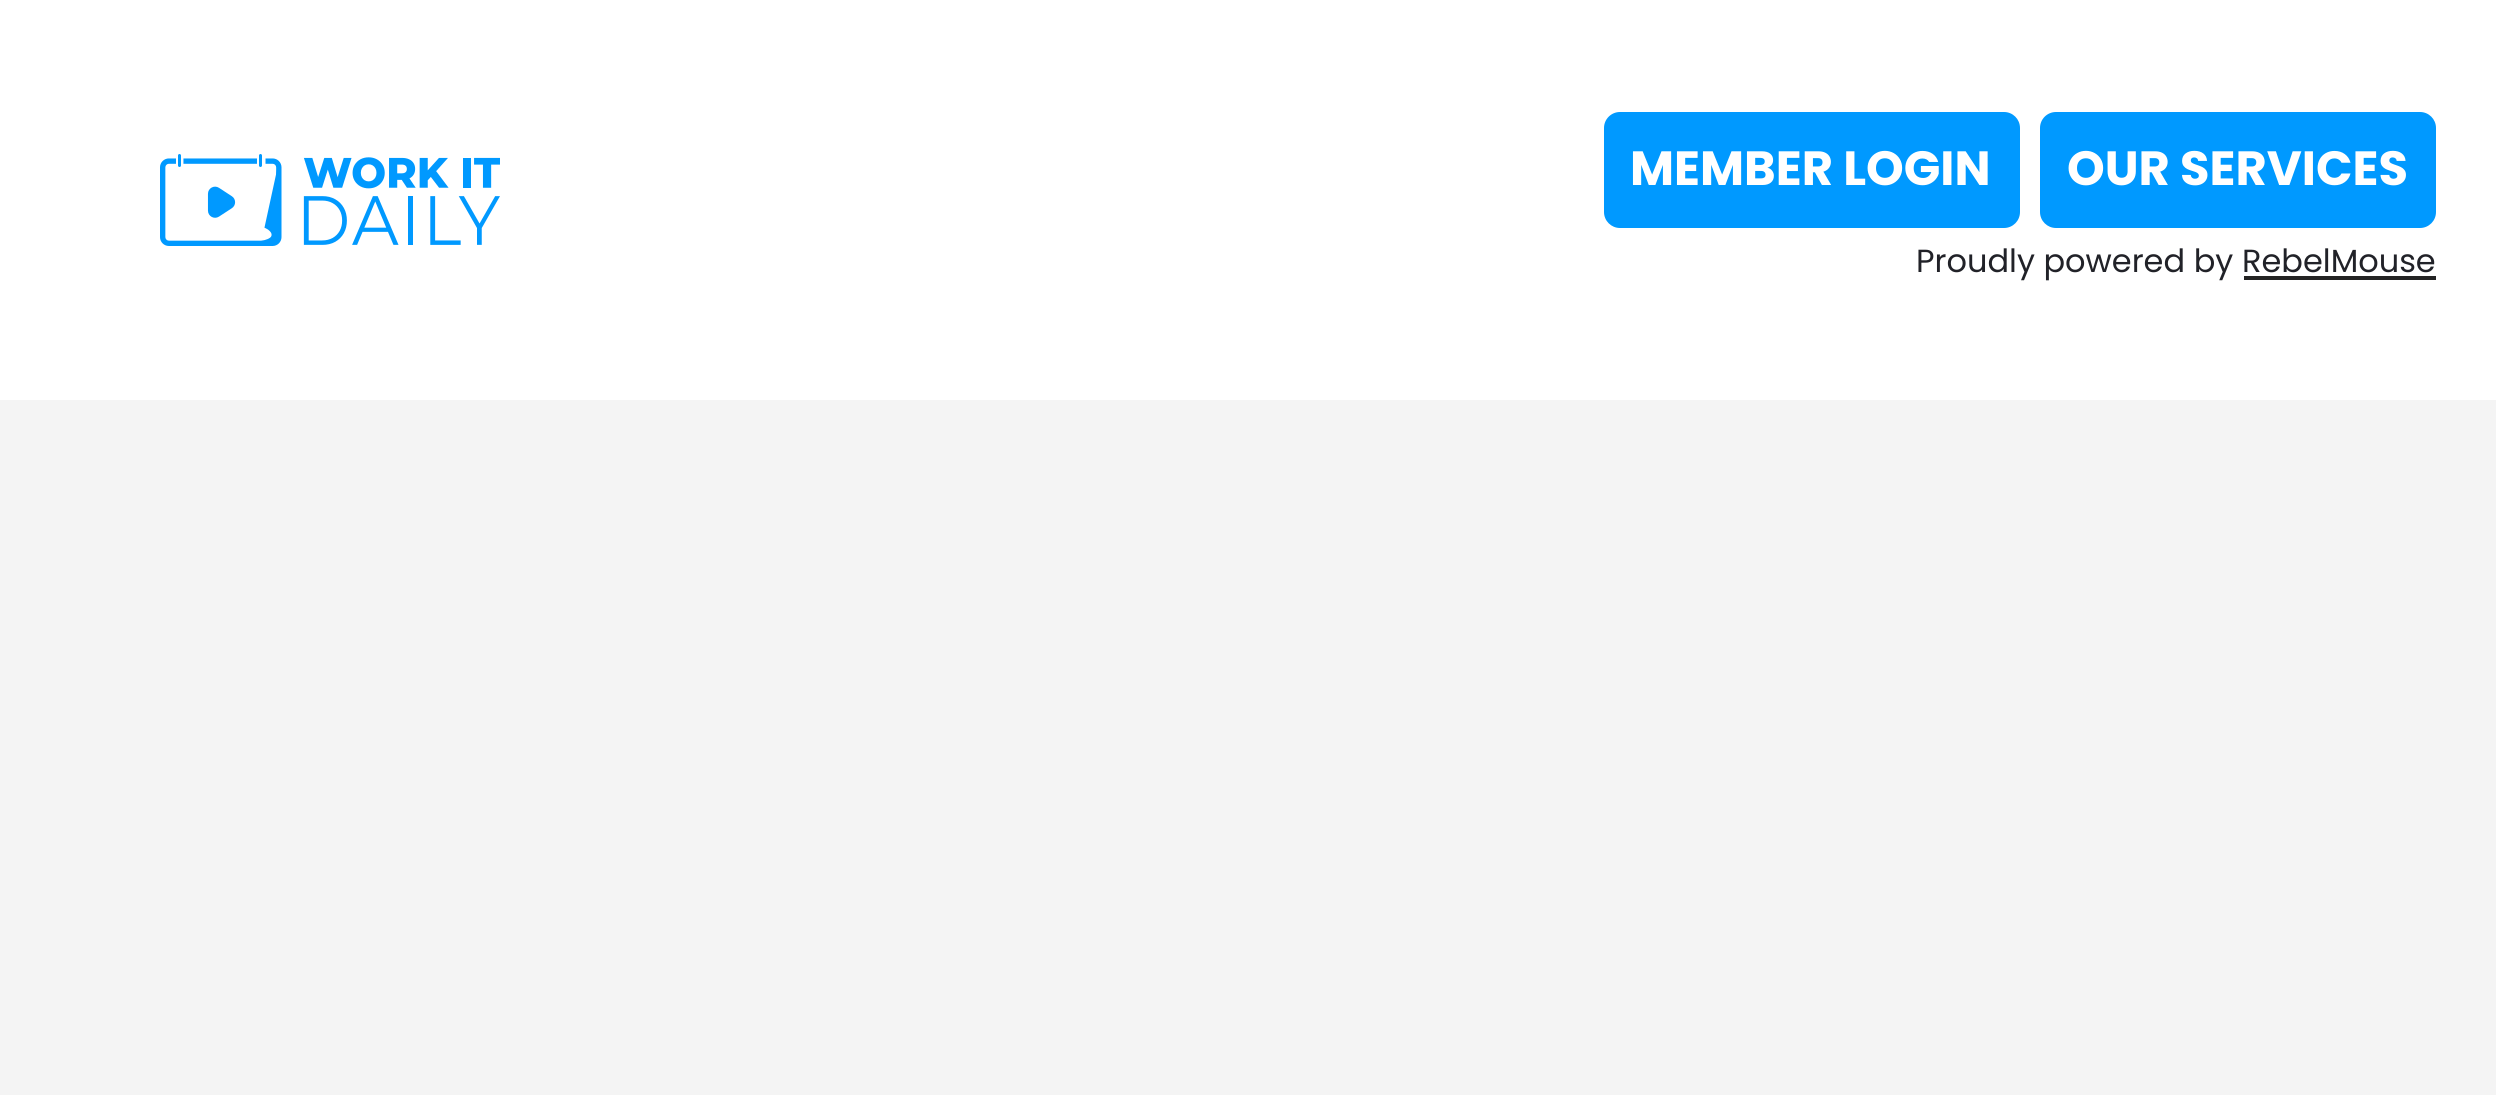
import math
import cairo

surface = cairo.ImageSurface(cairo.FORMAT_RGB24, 2496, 1095)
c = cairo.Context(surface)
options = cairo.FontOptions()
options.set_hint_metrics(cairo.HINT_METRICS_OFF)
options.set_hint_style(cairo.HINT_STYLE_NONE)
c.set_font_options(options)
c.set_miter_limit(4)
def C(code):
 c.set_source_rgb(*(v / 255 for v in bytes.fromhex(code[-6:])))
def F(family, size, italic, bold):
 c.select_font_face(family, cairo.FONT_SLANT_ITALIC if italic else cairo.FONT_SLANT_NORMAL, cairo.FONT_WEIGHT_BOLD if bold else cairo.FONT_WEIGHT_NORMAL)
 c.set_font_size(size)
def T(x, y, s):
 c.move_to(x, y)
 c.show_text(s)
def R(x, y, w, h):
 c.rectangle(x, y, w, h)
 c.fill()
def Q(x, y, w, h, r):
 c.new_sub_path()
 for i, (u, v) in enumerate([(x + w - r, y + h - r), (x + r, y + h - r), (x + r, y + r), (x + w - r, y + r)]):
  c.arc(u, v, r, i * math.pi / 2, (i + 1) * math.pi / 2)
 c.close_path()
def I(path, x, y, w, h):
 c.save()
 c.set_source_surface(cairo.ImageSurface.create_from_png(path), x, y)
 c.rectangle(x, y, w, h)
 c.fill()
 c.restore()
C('f4f4f4')
c.paint()
C('ffffff')
R(0,0,2496,400)
I('1.png',160,154,340,92)
C('0099ff')
Q(1604,112,416,116,16)
c.fill()
F('Poppins',48,0,1)
C('ffffff')
T(1630,185,'MEMBER LOGIN')
C('0099ff')
Q(2040,112,396,116,16)
c.fill()
C('ffffff')
T(2067,185,'OUR SERVICES')
F('Poppins',32,0,0)
C('212228')
T(1916,272,'Proudly powered by')
T(2242,272,'RebelMouse')
C('242424')
R(2244,276,192,4)
surface.write_to_png('o.png')
